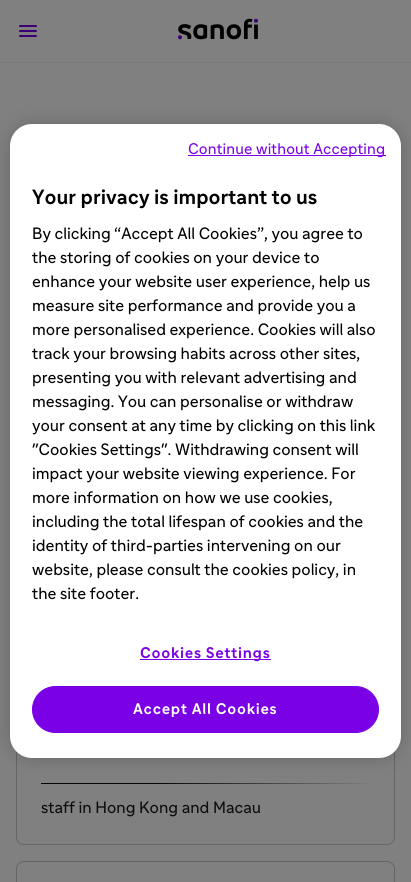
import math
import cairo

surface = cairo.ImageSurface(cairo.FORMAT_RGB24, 411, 882)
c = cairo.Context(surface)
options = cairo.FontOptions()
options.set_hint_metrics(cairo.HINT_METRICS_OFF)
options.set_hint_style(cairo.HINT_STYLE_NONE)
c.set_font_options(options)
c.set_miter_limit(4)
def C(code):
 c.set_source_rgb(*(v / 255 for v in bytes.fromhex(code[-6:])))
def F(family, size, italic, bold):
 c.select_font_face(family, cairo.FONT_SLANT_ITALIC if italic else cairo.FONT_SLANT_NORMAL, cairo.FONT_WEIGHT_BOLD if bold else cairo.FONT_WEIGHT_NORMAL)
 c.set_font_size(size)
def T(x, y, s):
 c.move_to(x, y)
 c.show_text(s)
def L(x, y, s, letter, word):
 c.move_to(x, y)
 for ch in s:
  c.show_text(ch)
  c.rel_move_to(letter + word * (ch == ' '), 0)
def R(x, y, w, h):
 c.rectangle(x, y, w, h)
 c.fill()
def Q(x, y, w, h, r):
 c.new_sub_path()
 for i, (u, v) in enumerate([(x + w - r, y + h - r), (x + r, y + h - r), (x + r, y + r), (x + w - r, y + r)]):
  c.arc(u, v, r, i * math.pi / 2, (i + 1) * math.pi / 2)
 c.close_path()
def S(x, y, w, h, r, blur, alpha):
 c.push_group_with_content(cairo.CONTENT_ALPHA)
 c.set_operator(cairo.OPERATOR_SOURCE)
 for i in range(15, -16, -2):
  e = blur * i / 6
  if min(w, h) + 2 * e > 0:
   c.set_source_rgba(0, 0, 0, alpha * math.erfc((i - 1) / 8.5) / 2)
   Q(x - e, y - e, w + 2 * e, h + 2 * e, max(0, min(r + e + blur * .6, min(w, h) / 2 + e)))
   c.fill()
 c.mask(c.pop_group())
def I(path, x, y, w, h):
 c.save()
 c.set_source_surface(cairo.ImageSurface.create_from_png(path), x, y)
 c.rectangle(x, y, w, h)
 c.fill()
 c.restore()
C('808080')
c.paint()
Q(16.5,696.5,378,148,7.5)
C('656565')
c.set_line_width(1)
c.stroke()
gradient = cairo.LinearGradient(41,784,374,784)
gradient.add_color_stop_rgba(.35,0.02,0.02,0.02,1)
gradient.add_color_stop_rgba(1,0.502,0.502,0.502,1)
c.set_source(gradient)
R(41,783,329,1)
C('000000')
S(10,124,391,634,22,9,.2)
C('ffffff')
Q(10,124,391,634,22)
c.fill()
C('7a00e6')
R(188,155,198,1)
F('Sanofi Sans',15,0,0)
L(188,154,'Continue without Accepting',.15,0)
F('Sanofi Sans',20,0,1)
C('000000')
T(32,204,'Your privacy is important to us')
F('Sanofi Sans',16,0,0)
T(32,239,'By clicking “Accept All Cookies”, you agree to')
T(32,263,'the storing of cookies on your device to')
T(32,287,'enhance your website user experience, help us')
T(32,311,'measure site performance and provide you a')
T(32,335,'more personalised experience. Cookies will also')
T(32,359,'track your browsing habits across other sites,')
T(32,383,'presenting you with relevant advertising and')
T(32,407,'messaging. You can personalise or withdraw')
T(32,431,'your consent at any time by clicking on this link')
T(32,455,'"Cookies Settings". Withdrawing consent will')
T(32,479,'impact your website viewing experience. For')
T(32,503,'more information on how we use cookies,')
T(32,527,'including the total lifespan of cookies and the')
T(32,551,'identity of third-parties intervening on our')
T(32,575,'website, please consult the cookies policy, in')
T(32,599,'the site footer.')
C('7a00e6')
R(140,659,131,1)
F('Sanofi Sans',15,0,1)
L(140,658,'Cookies Settings',.75,0)
Q(32.5,686.5,346,46,23)
c.fill_preserve()
c.stroke()
C('ffffff')
L(133,714,'Accept All Cookies',.75,0)
C('7b7b7b')
R(0,62,411,1)
I('1.png',19,25,18,12)
I('2.png',178,18,80,22)
F('Sanofi Sans',16,0,0)
C('0c0c0c')
T(41,813,'staff in Hong Kong and Macau')
Q(16.5,861.5,378,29,7.5)
C('656565')
c.stroke()
surface.write_to_png('o.png')
